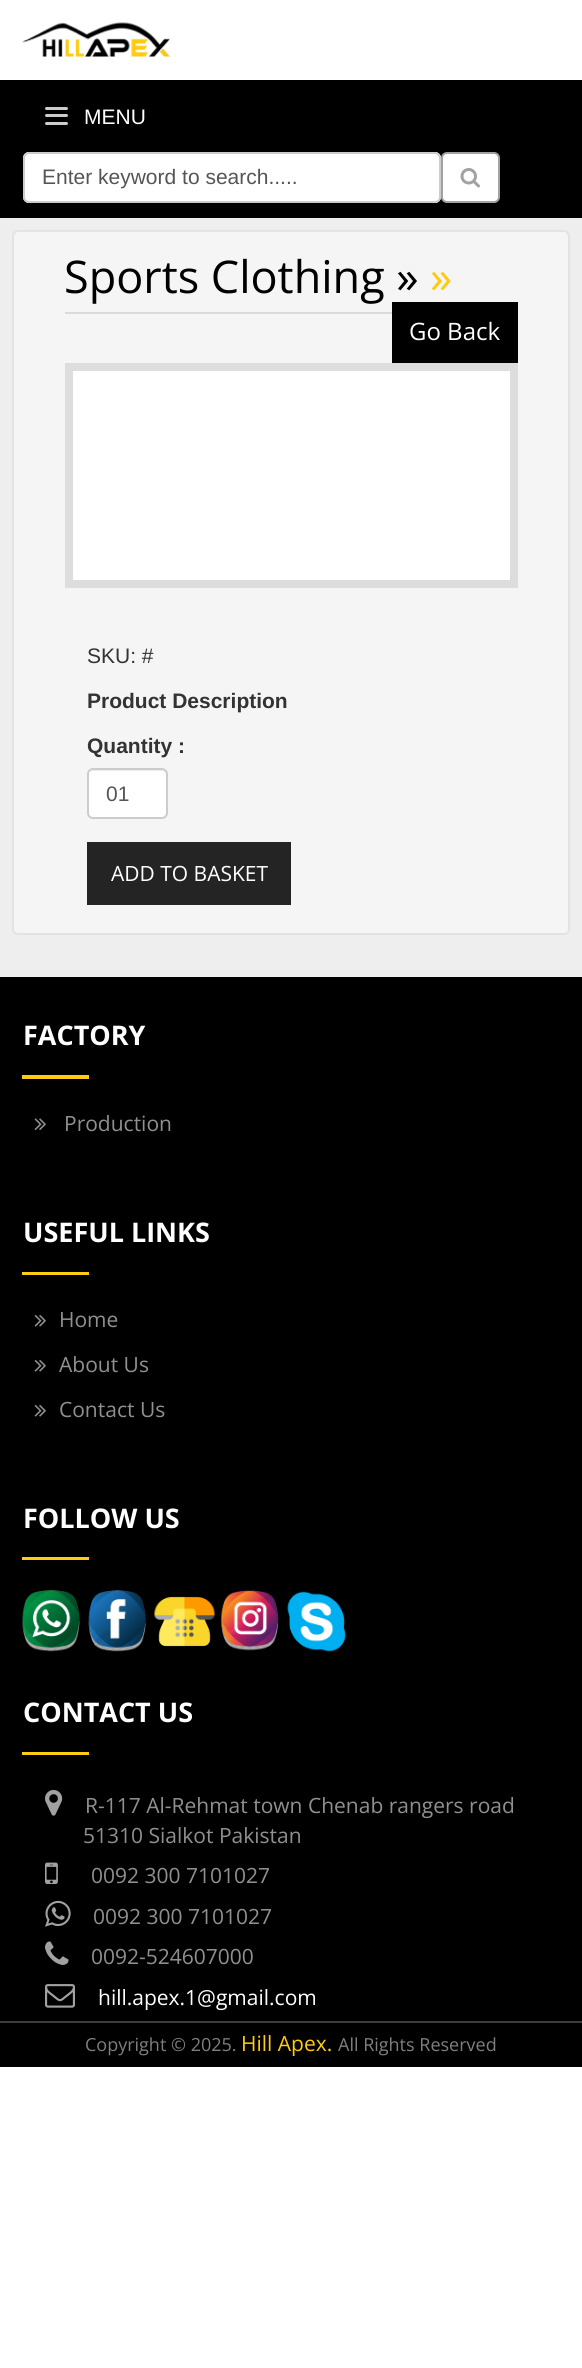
import math
import cairo

surface = cairo.ImageSurface(cairo.FORMAT_RGB24, 582, 2368)
c = cairo.Context(surface)
options = cairo.FontOptions()
options.set_hint_metrics(cairo.HINT_METRICS_OFF)
options.set_hint_style(cairo.HINT_STYLE_NONE)
c.set_font_options(options)
c.set_miter_limit(4)
def C(code):
 c.set_source_rgb(*(v / 255 for v in bytes.fromhex(code[-6:])))
def F(family, size, italic, bold):
 c.select_font_face(family, cairo.FONT_SLANT_ITALIC if italic else cairo.FONT_SLANT_NORMAL, cairo.FONT_WEIGHT_BOLD if bold else cairo.FONT_WEIGHT_NORMAL)
 c.set_font_size(size)
def T(x, y, s):
 c.move_to(x, y)
 c.show_text(s)
def R(x, y, w, h):
 c.rectangle(x, y, w, h)
 c.fill()
def Q(x, y, w, h, r):
 c.new_sub_path()
 for i, (u, v) in enumerate([(x + w - r, y + h - r), (x + r, y + h - r), (x + r, y + r), (x + w - r, y + r)]):
  c.arc(u, v, r, i * math.pi / 2, (i + 1) * math.pi / 2)
 c.close_path()
def I(path, x, y, w, h):
 c.save()
 c.set_source_surface(cairo.ImageSurface.create_from_png(path), x, y)
 c.rectangle(x, y, w, h)
 c.fill()
 c.restore()
C('ffffff')
c.paint()
I('1.png',22,22,149,35)
C('000000')
R(0,80,582,138)
C('cccccc')
Q(45,107,23,3,1.5)
c.fill()
Q(45,114,23,3,1.5)
c.fill()
Q(45,122,23,3,1.5)
c.fill()
F('Liberation Sans',21,0,0)
C('ffffff')
T(84,124,'MENU')
Q(23,152,418,51,6)
c.fill()
C('ececec')
c.new_path()
c.move_to(28,154)
c.line_to(435,154)
c.curve_to(437,154,440,157,440,159)
c.line_to(440,158)
c.curve_to(440,155,438,153,435,153)
c.line_to(29,153)
c.curve_to(26,153,24,155,24,158)
c.line_to(24,159)
c.curve_to(24,157,26,154,28,154)
c.close_path()
c.fill()
Q(24,153,416,49,5)
C('cccccc')
c.stroke()
C('555555')
T(42,184,'Enter keyword to search.....')
C('ffffff')
Q(442,153,57,49,5)
c.fill_preserve()
C('a3a2a2')
c.stroke()
I('2.png',460,168,20,20)
C('eeeeee')
R(0,218,582,759)
C('f5f5f5')
Q(12,230,558,705,6)
c.fill()
C('e9e9e9')
c.new_path()
c.move_to(18,232)
c.line_to(564,232)
c.curve_to(566,232,568,235,568,237)
c.line_to(568,931)
c.curve_to(569,930,569,929,569,928)
c.line_to(569,236)
c.curve_to(569,233,567,231,564,231)
c.line_to(19,231)
c.curve_to(16,231,14,233,14,236)
c.line_to(14,237)
c.curve_to(14,235,16,232,18,232)
c.close_path()
c.fill()
Q(13,231,556,703,5)
C('e3e3e3')
c.stroke()
C('d8dbdb')
R(65,312,327,2)
C('000000')
R(392,302,126,61)
F('Open Sans',45,0,0)
T(64,293,'Sports Clothing »')
C('fecb0e')
T(430,293,'»')
F('Open Sans',24,0,0)
C('ffffff')
T(409,340,'Go Back')
c.rectangle(69,367,445,217)
c.fill_preserve()
C('dddddd')
c.set_line_width(8)
c.stroke()
F('Liberation Sans',21,0,0)
C('333333')
T(87,663,'SKU: #')
F('Liberation Sans',21,0,1)
T(87,708,'Product Description')
T(87,753,'Quantity :')
C('ffffff')
Q(87,768,81,51,6)
c.fill()
C('ececec')
c.new_path()
c.move_to(93,771)
c.line_to(162,771)
c.curve_to(164,771,166,773,166,776)
c.line_to(166,814)
c.line_to(165,817)
c.curve_to(166,816,167,814,167,813)
c.line_to(167,775)
c.curve_to(167,772,165,770,162,770)
c.line_to(94,770)
c.curve_to(92,770,91,771,90,772)
c.close_path()
c.fill()
Q(88,769,79,49,5)
C('cccccc')
c.set_line_width(2)
c.stroke()
F('Liberation Sans',21,0,0)
C('555555')
T(106,801,'01')
C('242424')
R(87,842,204,63)
F('Open Sans',21,0,0)
C('ffffff')
T(111,881,'ADD TO BASKET')
C('000000')
R(0,977,582,1090)
C('fecb0e')
R(22,1075,67,4)
F('Open Sans',27,0,1)
C('ffffff')
T(23,1045,'FACTORY')
I('3.png',34,1118,12,12)
F('Open Sans',21,0,0)
C('909090')
T(64,1131,'Production')
C('fecb0e')
R(22,1272,67,3)
F('Open Sans',27,0,1)
C('ffffff')
T(23,1242,'USEFUL LINKS')
I('4.png',34,1315,12,12)
F('Open Sans',21,0,0)
C('909090')
T(59,1327,'Home')
I('4.png',34,1360,12,12)
T(59,1372,'About Us')
I('4.png',34,1405,12,12)
T(59,1417,'Contact Us')
C('fecb0e')
R(22,1557,67,3)
F('Open Sans',27,0,1)
C('ffffff')
T(23,1528,'FOLLOW US')
I('5.png',22,1590,59,62)
I('6.png',88,1590,58,63)
I('7.png',154,1596,61,51)
I('8.png',221,1590,58,61)
I('9.png',287,1591,59,61)
C('fecb0e')
R(22,1752,67,3)
C('ffffff')
T(23,1722,'CONTACT US')
I('10.png',45,1789,18,27)
F('Open Sans',21,0,0)
C('909090')
T(85,1813,'R-117 Al-Rehmat town Chenab rangers road')
T(83,1843,'51310 Sialkot Pakistan')
I('11.png',45,1862,13,22)
T(91,1883,'0092 300 7101027')
I('12.png',45,1900,26,27)
T(93,1924,'0092 300 7101027')
I('13.png',45,1941,24,24)
T(91,1964,'0092-524607000')
I('14.png',45,1984,30,24)
C('ffffff')
T(98,2005,'hill.apex.1@gmail.com')
C('3d3d3e')
R(0,2021,582,2)
F('Open Sans',18,0,0)
C('7d7f81')
T(85,2051,'Copyright © 2025.')
F('Open Sans',21,0,0)
C('fecb0e')
T(241,2051,'Hill Apex.')
F('Open Sans',18,0,0)
C('7d7f81')
T(338,2051,'All Rights Reserved')
surface.write_to_png('o.png')
